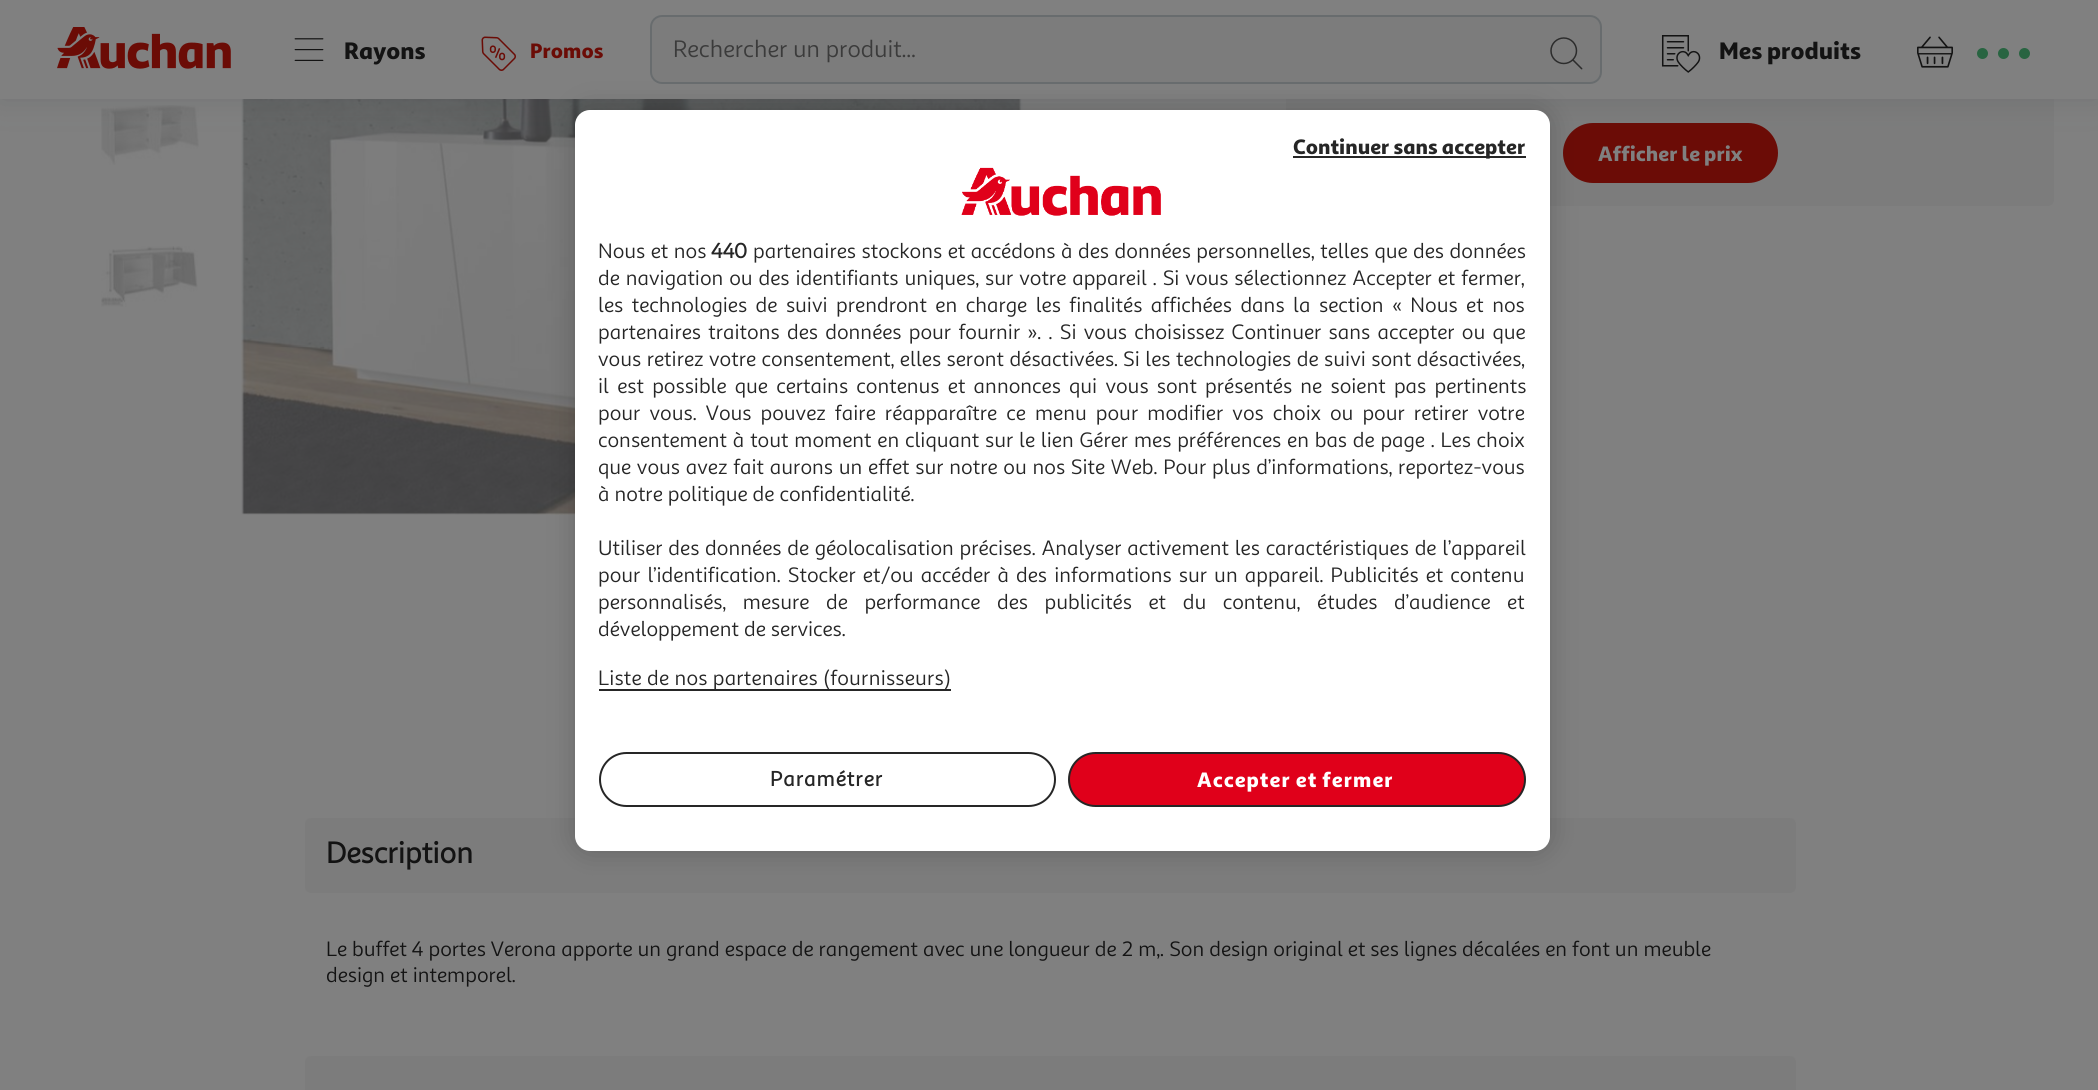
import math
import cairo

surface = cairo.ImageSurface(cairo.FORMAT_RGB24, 2098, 1090)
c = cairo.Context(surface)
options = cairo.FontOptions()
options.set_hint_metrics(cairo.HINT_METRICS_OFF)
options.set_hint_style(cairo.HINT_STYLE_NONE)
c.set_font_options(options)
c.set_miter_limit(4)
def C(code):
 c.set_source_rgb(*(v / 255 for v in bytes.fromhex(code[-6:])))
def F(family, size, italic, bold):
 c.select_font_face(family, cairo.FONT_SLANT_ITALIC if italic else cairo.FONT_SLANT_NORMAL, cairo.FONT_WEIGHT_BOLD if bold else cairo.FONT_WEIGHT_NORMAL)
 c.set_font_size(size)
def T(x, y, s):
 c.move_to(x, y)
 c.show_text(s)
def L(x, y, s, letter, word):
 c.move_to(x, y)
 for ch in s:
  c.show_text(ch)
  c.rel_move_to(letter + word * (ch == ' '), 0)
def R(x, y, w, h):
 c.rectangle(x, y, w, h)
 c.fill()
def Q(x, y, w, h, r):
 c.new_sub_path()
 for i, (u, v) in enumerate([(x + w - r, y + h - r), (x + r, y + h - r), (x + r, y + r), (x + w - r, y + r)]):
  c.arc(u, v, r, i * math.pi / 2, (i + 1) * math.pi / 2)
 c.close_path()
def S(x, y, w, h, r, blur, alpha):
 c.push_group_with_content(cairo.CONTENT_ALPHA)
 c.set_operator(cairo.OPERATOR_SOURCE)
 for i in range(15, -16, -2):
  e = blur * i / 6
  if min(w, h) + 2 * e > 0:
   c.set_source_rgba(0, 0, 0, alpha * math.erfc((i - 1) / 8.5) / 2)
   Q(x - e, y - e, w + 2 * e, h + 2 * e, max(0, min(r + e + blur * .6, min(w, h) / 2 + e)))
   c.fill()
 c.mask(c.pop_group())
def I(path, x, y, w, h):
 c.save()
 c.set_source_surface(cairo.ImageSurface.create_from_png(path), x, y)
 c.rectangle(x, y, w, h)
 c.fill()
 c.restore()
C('808080')
c.paint()
I('7.png',101,105,98,60)
I('9.png',241,99,782,416)
C('7c7c7c')
Q(1286,56,768,150,6)
c.fill()
C('6b0c06')
Q(1564,124,213,58,29)
c.fill_preserve()
c.stroke()
C('3a4144')
S(0,0,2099,99,0,15,.2)
C('808080')
R(0,0,2098,99)
I('1.png',57,27,174,42)
I('2.png',294,38,30,23)
F('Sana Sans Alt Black',24,0,0)
C('131313')
T(344,59,'Rayons')
I('3.png',481,36,35,35)
F('Sana Sans Alt Black',21,0,0)
C('6b0c06')
T(530,58,'Promos')
C('7c7c7c')
Q(651,16,950,67,11)
c.fill_preserve()
C('686c6e')
c.stroke()
F('Sana Sans Alt',24,0,0)
C('3b3b3b')
T(673,57,'Rechercher un produit...')
I('4.png',1550,37,33,33)
I('5.png',1661,35,40,38)
F('Sana Sans Alt Black',24,0,0)
C('131313')
T(1719,59,'Mes produits')
I('6.png',1917,36,36,32)
C('286441')
c.arc(1982.5,53.5,5.5,0,2 * math.pi)
c.fill()
c.arc(2003.5,53.5,5.5,0,2 * math.pi)
c.fill()
c.arc(2024.5,53.5,5.5,0,2 * math.pi)
c.fill()
I('8.png',101,246,97,61)
F('Sana Sans Alt Black',21,0,0)
C('808080')
T(1598,161,'Afficher le prix')
C('7c7c7c')
Q(305,818,1491,75,6)
c.fill()
F('Sana Sans Alt',30,0,1)
C('131313')
T(326,863,'Description')
F('Sana Sans Alt',21,0,0)
T(326,956,'Le buffet 4 portes Verona apporte un grand espace de rangement avec une longueur de 2 m,. Son design original et ses lignes décalées en font un meuble')
T(326,982,'design et intemporel.')
C('7c7c7c')
Q(305,1056,1491,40,6)
c.fill()
C('000000')
S(575,110,975,741,15,13.5,.2)
C('ffffff')
Q(575,110,975,741,15)
c.fill()
Q(600,753,455,53,26.5)
C('262626')
c.stroke()
F('Sana Sans Alt',21,0,1)
L(770,786,'Paramétrer',1,0)
R(1293,156,233,2)
F('Sana Sans Alt Black',21,0,0)
T(1293,154,'Continuer sans accepter')
C('e0001a')
Q(1069,753,456,53,26.5)
c.fill_preserve()
C('262626')
c.stroke()
C('ffffff')
L(1197,787,'Accepter et fermer',1,0)
I('10.png',961,167,200,49)
F('Sana Sans Alt',21,0,0)
C('262626')
L(598,258,'Nous et nos',0,.5)
F('Sana Sans Alt',21,0,1)
T(711,258,'440')
F('Sana Sans Alt',21,0,0)
L(753,258,'partenaires stockons et accédons à des données personnelles, telles que des données',0,.5)
L(598,285,'de navigation ou des identifiants uniques, sur votre appareil . Si vous sélectionnez Accepter et fermer,',0,.9)
L(598,312,'les technologies de suivi prendront en charge les finalités affichées dans la section « Nous et nos',0,3.5)
L(598,339,'partenaires traitons des données pour fournir ». . Si vous choisissez Continuer sans accepter ou que',0,2.25)
L(598,366,'vous retirez votre consentement, elles seront désactivées.',0,.5)
L(1123,366,'Si les technologies de suivi sont désactivées,',0,.5)
L(598,393,'il est possible que certains contenus et annonces qui vous sont présentés ne soient pas pertinents',0,3.25)
L(598,420,'pour vous. Vous pouvez faire réapparaître ce menu pour modifier vos choix ou pour retirer votre',0,4.1)
L(598,447,'consentement à tout moment en cliquant sur le lien Gérer mes préférences en bas de page . Les choix',0,.8)
L(598,474,'que vous avez fait aurons un effet sur notre ou nos Site Web. Pour plus d’informations, reportez-vous',0,.75)
T(598,501,'à notre politique de confidentialité.')
L(598,555,'Utiliser des données de géolocalisation précises. Analyser activement les caractéristiques de l’appareil',0,.75)
L(598,582,'pour l’identification. Stocker et/ou accéder à des informations sur un appareil. Publicités et contenu',0,2.1)
L(598,609,'personnalisés, mesure de performance des publicités et du contenu, études d’audience et',0,11.6)
T(598,636,'développement de services.')
R(599,689,352,2)
L(598,685,'Liste de nos partenaires (fournisseurs)',.2,0)
surface.write_to_png('o.png')
